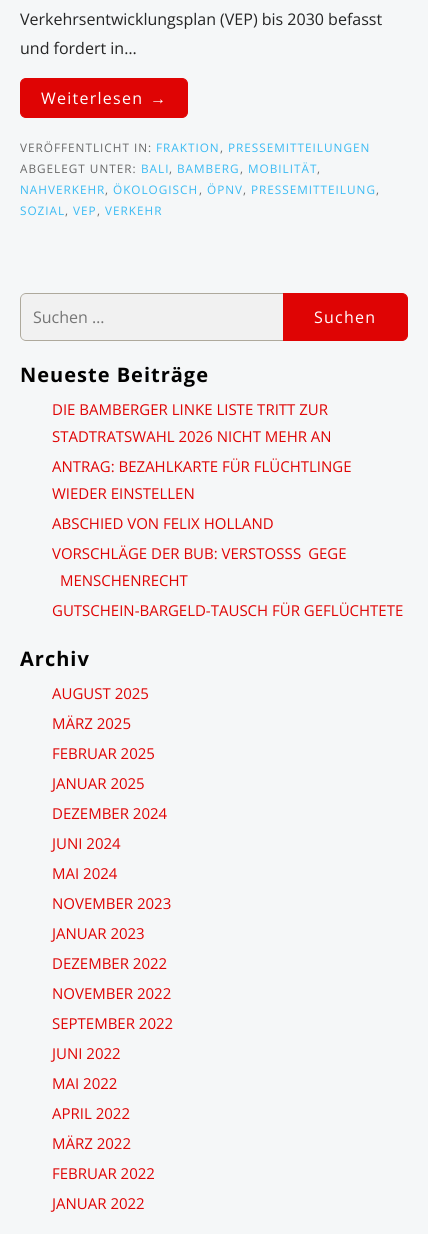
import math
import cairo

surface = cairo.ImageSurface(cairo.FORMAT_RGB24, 428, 1234)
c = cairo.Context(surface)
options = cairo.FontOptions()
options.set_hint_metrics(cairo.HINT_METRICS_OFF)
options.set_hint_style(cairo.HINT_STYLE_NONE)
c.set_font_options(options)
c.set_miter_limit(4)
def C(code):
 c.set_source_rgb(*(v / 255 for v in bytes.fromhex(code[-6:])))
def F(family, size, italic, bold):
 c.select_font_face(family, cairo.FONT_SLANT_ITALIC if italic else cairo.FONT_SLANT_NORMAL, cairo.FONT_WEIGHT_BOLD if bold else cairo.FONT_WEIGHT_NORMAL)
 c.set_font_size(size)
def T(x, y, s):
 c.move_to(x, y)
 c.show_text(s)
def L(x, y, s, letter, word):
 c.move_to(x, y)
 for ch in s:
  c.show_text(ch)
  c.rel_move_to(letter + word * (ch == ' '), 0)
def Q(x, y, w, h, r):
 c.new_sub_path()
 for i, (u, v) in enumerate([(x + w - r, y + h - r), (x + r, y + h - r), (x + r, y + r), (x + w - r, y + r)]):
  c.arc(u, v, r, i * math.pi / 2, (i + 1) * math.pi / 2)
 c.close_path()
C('f5f7f8')
c.paint()
F('Open Sans',16,0,0)
C('252525')
T(20,25,'Verkehrsentwicklungsplan (VEP) bis 2030 befasst')
T(20,54,'und fordert in…')
C('df0404')
Q(20.5,78.5,167,39,5.5)
c.fill_preserve()
c.set_line_width(1)
c.stroke()
C('ffffff')
L(41,104,'Weiterlesen',1.25,0)
F('Liberation Sans',16,0,0)
L(150,104,'→',1.25,0)
F('Open Sans',11.75,0,0)
C('686868')
L(20,152,'VERÖFFENTLICHT IN:',1,0)
C('39baf3')
L(156,152,'FRAKTION',1,0)
C('686868')
L(220,152,',',1,0)
C('39baf3')
L(228,152,'PRESSEMITTEILUNGEN',1,0)
C('686868')
L(20,173,'ABGELEGT UNTER:',1,0)
C('39baf3')
L(141,173,'BALI',1,0)
C('686868')
L(169,173,',',1,0)
C('39baf3')
L(177,173,'BAMBERG',1,0)
C('686868')
L(240,173,',',1,0)
C('39baf3')
L(248,173,'MOBILITÄT',1,0)
C('686868')
L(317,173,',',1,0)
C('39baf3')
L(20,194,'NAHVERKEHR',1,0)
C('686868')
L(105,194,',',1,0)
C('39baf3')
L(113,194,'ÖKOLOGISCH',1,0)
C('686868')
L(199,194,',',1,0)
C('39baf3')
L(207,194,'ÖPNV',1,0)
C('686868')
L(243,194,',',1,0)
C('39baf3')
L(251,194,'PRESSEMITTEILUNG',1,0)
C('686868')
L(376,194,',',1,0)
C('39baf3')
L(20,215,'SOZIAL',1,0)
C('686868')
L(65,215,',',1,0)
C('39baf3')
L(73,215,'VEP',1,0)
C('686868')
L(97,215,',',1,0)
C('39baf3')
L(105,215,'VERKEHR',1,0)
C('f1f1f1')
c.new_path()
c.move_to(26,293)
c.line_to(308,293)
c.line_to(308,341)
c.line_to(26,341)
c.curve_to(22.5,341,20,338.5,20,335)
c.line_to(20,299)
c.curve_to(20,295.5,22.5,293,26,293)
c.close_path()
c.fill()
C('aea99c')
c.set_fill_rule(cairo.FILL_RULE_EVEN_ODD)
c.new_path()
c.move_to(26,293)
c.line_to(308,293)
c.line_to(308,341)
c.line_to(26,341)
c.curve_to(23,341,20,338,20,335)
c.line_to(20,299)
c.curve_to(20,296,23,293,26,293)
c.close_path()
c.move_to(26,294)
c.line_to(308,294)
c.line_to(308,340)
c.line_to(26,340)
c.curve_to(23,340,21,338,21,335)
c.line_to(21,299)
c.curve_to(21,296,23,294,26,294)
c.close_path()
c.fill()
F('Open Sans',16,0,0)
C('757575')
T(33,323,'Suchen …')
C('df0404')
c.new_path()
c.move_to(283.5,293.5)
c.line_to(402,293.5)
c.curve_to(405,293.5,407.5,296,407.5,299)
c.line_to(407.5,335)
c.curve_to(407.5,338,405,340.5,402,340.5)
c.line_to(283.5,340.5)
c.close_path()
c.fill_preserve()
c.stroke()
C('ffffff')
L(314,323,'Suchen',1.25,0)
F('Open Sans',20,0,1)
C('020202')
L(20,382,'Neueste Beiträge',1,0)
F('Open Sans',15,0,0)
C('df0404')
T(52,415,'DIE BAMBERGER LINKE LISTE TRITT ZUR')
T(52,442,'STADTRATSWAHL 2026 NICHT MEHR AN')
T(52,472,'ANTRAG: BEZAHLKARTE FÜR FLÜCHTLINGE')
T(52,499,'WIEDER EINSTELLEN')
T(52,529,'ABSCHIED VON FELIX HOLLAND')
T(52,559,'VORSCHLÄGE DER BUB: VERSTOSS')
L(293,559,'S GEGE',0,3)
T(60,586,'MENSCHENRECHT')
T(52,616,'GUTSCHEIN-BARGELD-TAUSCH FÜR GEFLÜCHTETE')
F('Open Sans',20,0,1)
C('020202')
L(20,666,'Archiv',1,0)
F('Open Sans',15,0,0)
C('df0404')
T(52,699,'AUGUST 2025')
T(52,729,'MÄRZ 2025')
T(52,759,'FEBRUAR 2025')
T(52,789,'JANUAR 2025')
T(52,819,'DEZEMBER 2024')
T(52,849,'JUNI 2024')
T(52,879,'MAI 2024')
T(52,909,'NOVEMBER 2023')
T(52,939,'JANUAR 2023')
T(52,969,'DEZEMBER 2022')
T(52,999,'NOVEMBER 2022')
T(52,1029,'SEPTEMBER 2022')
T(52,1059,'JUNI 2022')
T(52,1089,'MAI 2022')
T(52,1119,'APRIL 2022')
T(52,1149,'MÄRZ 2022')
T(52,1179,'FEBRUAR 2022')
T(52,1209,'JANUAR 2022')
surface.write_to_png('o.png')
